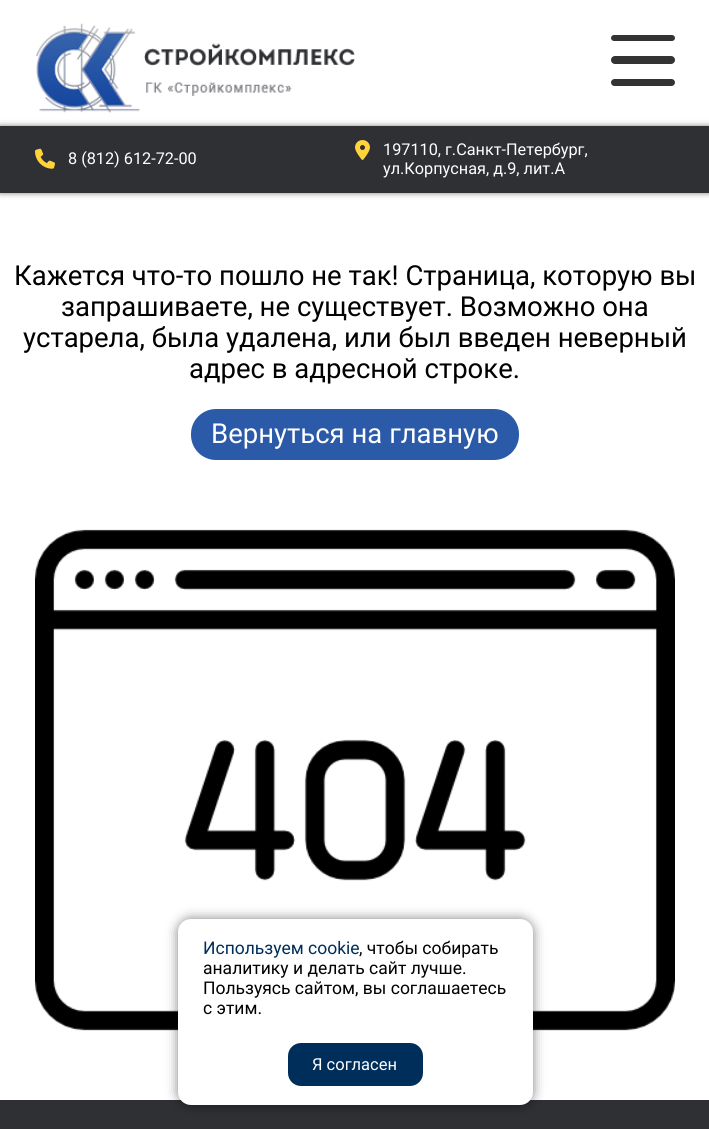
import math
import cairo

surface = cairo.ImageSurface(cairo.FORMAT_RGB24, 709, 1129)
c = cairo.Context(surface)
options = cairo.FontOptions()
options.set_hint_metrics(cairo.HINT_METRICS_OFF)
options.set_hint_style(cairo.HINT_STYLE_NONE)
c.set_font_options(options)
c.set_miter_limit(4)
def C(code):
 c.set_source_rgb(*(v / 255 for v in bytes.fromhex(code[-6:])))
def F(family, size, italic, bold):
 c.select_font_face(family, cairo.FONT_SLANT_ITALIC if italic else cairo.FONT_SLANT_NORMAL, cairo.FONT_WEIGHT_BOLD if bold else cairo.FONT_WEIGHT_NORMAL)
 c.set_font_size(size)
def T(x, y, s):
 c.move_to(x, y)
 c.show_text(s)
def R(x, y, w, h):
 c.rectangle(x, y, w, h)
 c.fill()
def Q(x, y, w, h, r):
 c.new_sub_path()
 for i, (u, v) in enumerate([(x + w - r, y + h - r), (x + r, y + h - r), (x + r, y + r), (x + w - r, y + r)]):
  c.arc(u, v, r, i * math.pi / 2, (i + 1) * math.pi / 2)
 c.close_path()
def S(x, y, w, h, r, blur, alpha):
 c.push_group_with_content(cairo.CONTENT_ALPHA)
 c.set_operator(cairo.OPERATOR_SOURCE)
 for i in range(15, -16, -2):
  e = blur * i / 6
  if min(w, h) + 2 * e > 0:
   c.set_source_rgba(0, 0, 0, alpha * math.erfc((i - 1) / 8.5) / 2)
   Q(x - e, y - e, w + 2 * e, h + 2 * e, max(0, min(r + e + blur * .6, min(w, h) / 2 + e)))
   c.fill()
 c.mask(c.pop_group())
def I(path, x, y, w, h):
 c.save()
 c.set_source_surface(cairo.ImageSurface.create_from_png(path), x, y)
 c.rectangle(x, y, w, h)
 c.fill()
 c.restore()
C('ffffff')
c.paint()
I('1.png',36,23,319,90)
C('333333')
Q(611,35,64,6,3)
c.fill()
Q(611,56,64,8,4)
c.fill()
Q(611,79,64,7,3.5)
c.fill()
C('000000')
S(0,126,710,67,0,3,.52)
C('2f3034')
R(0,126,709,67)
I('2.png',35,148,20,21)
F('Roboto',16.25,0,0)
C('ffffff')
T(68,164,'8 (812) 612-72-00')
I('3.png',355,140,15,20)
T(383,155,'197110, г.Санкт-Петербург,')
T(383,174,'ул.Корпусная, д.9, лит.А')
F('Roboto',27.5,0,0)
C('000000')
T(14,285,'Кажется что-то пошло не так! Страница, которую вы')
T(61,316,'запрашиваете, не существует. Возможно она')
T(23,347,'устарела, была удалена, или был введен неверный')
T(189,378,'адрес в адресной строке.')
C('2b5aa8')
Q(191,409,328,51,25)
c.fill()
C('ffffff')
T(211,443,'Вернуться на главную')
I('4.png',35,529,640,502)
C('2f3034')
R(0,1100,709,29)
C('000000')
S(178,919,355,186,13,6,.5)
C('ffffff')
Q(178,919,355,186,13)
c.fill()
F('Roboto',17.5,0,0)
C('002e5b')
T(203,954,'Используем cookie')
C('000000')
T(359,954,', чтобы собирать')
T(203,974,'аналитику и делать сайт лучше.')
T(203,994,'Пользуясь сайтом, вы соглашаетесь')
T(203,1014,'с этим.')
C('002e5b')
Q(288,1043,135,43,13)
c.fill()
F('Roboto',16.5,0,0)
C('ffffff')
T(312,1070,'Я согласен')
surface.write_to_png('o.png')
